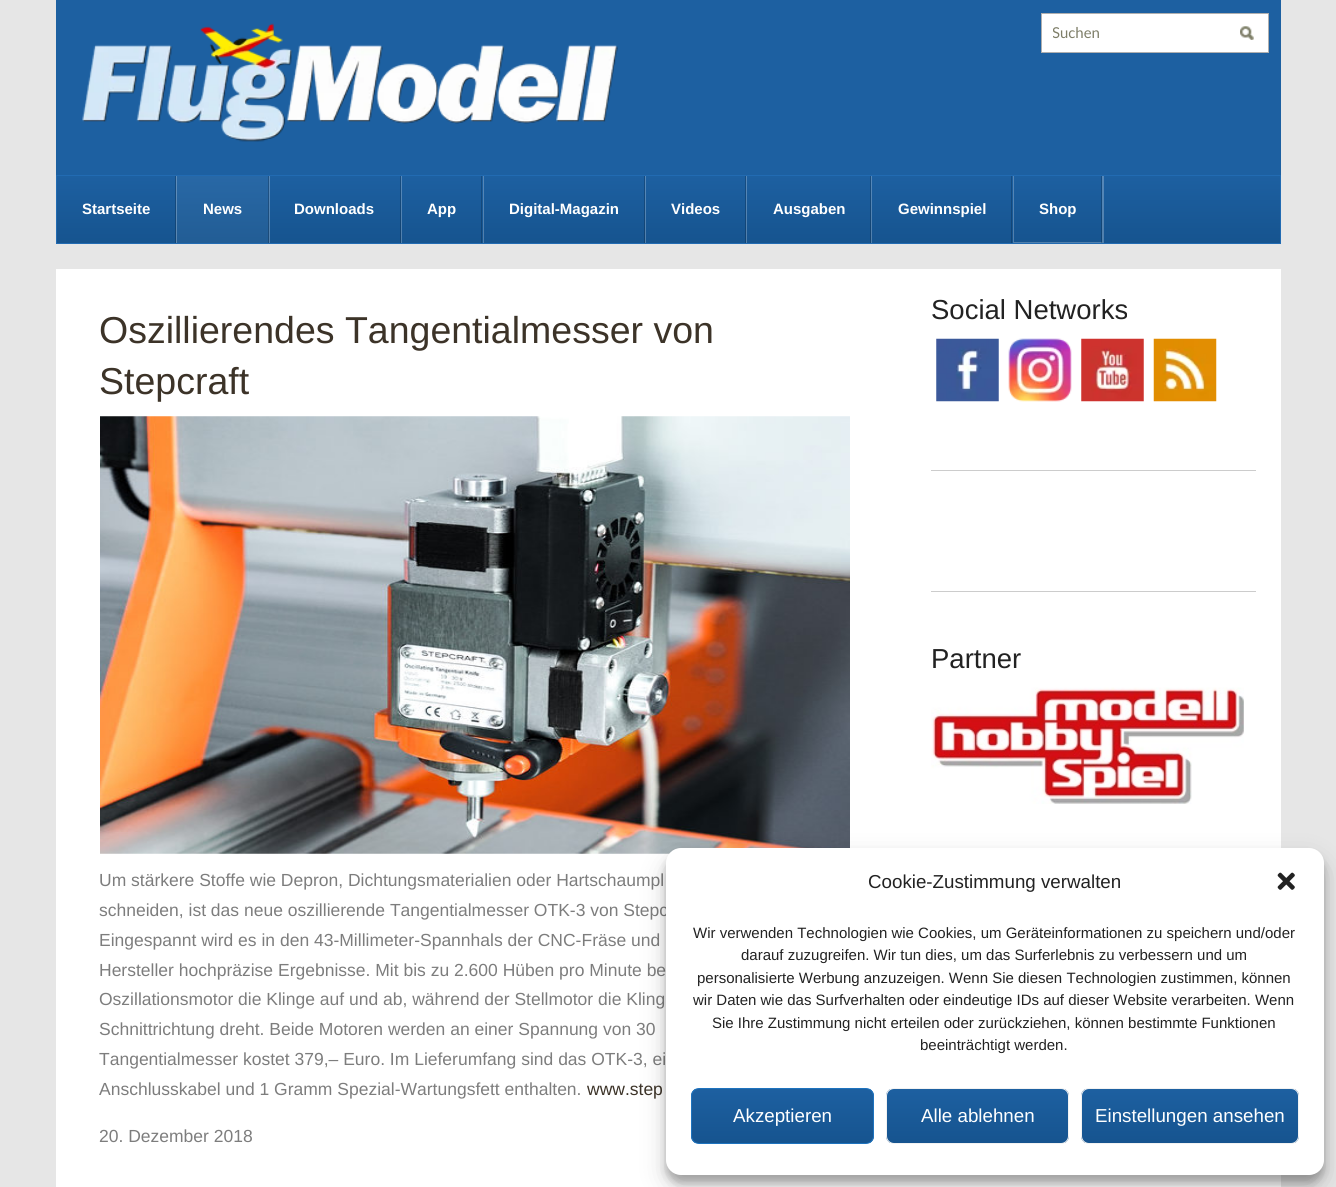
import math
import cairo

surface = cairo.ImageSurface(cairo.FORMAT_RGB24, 1336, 1187)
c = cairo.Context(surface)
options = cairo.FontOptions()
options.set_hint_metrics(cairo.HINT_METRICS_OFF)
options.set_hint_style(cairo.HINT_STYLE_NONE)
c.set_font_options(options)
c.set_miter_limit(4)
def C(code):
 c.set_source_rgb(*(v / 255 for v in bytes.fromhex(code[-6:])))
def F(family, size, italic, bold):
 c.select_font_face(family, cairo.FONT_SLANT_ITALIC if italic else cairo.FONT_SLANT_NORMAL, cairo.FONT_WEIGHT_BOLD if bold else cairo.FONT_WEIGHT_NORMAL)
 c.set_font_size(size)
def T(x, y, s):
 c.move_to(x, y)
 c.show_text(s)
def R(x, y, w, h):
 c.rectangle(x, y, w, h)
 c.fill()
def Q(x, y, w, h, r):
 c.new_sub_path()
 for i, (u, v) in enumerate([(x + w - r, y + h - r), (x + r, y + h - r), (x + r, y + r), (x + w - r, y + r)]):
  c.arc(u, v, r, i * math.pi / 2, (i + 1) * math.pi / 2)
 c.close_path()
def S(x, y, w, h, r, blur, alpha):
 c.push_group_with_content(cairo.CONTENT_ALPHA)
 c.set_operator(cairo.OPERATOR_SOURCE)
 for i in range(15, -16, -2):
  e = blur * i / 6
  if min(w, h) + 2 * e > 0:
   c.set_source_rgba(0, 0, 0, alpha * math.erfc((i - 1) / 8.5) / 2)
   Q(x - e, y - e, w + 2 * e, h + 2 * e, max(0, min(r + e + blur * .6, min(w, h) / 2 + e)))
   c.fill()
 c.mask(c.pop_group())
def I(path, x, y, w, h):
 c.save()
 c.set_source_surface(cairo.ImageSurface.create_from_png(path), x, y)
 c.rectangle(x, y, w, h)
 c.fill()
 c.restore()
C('e6e6e6')
c.paint()
C('1d60a1')
R(56,0,1225,175)
I('1.png',82,23,536,119)
C('ffffff')
c.rectangle(1041.5,13.5,227,39)
c.fill_preserve()
C('afafaf')
c.set_line_width(1)
c.stroke()
c.save()
c.rectangle(1053,24,167,19)
c.clip()
F('Lato',15,0,0)
C('7e7e68')
T(1052,38,'Suchen')
c.restore()
I('2.png',1240,26,14,14)
gradient = cairo.LinearGradient(669,176,669,243)
gradient.add_color_stop_rgba(0,0.114,0.376,0.631,1)
gradient.add_color_stop_rgba(1,0.086,0.329,0.561,1)
c.set_source(gradient)
R(57,176,1223,67)
gradient = cairo.LinearGradient(669,176,669,243)
gradient.add_color_stop_rgba(0,0.337,0.533,0.725,1)
gradient.add_color_stop_rgba(1,0.314,0.498,0.671,1)
c.set_source(gradient)
R(1013,176,1,67)
R(871,176,1,67)
gradient = cairo.LinearGradient(669,176,669,243)
gradient.add_color_stop_rgba(0,0.09,0.302,0.506,1)
gradient.add_color_stop_rgba(1,0.071,0.263,0.447,1)
c.set_source(gradient)
R(1011,176,1,67)
gradient = cairo.LinearGradient(669,176,669,243)
gradient.add_color_stop_rgba(0,0.337,0.533,0.725,1)
gradient.add_color_stop_rgba(1,0.314,0.498,0.671,1)
c.set_source(gradient)
R(746,176,1,67)
gradient = cairo.LinearGradient(669,176,669,243)
gradient.add_color_stop_rgba(0,0.09,0.302,0.506,1)
gradient.add_color_stop_rgba(1,0.071,0.263,0.447,1)
c.set_source(gradient)
R(870,176,1,67)
gradient = cairo.LinearGradient(669,176,669,243)
gradient.add_color_stop_rgba(0,0.337,0.533,0.725,1)
gradient.add_color_stop_rgba(1,0.314,0.498,0.671,1)
c.set_source(gradient)
R(645,176,1,67)
gradient = cairo.LinearGradient(669,176,669,243)
gradient.add_color_stop_rgba(0,0.09,0.302,0.506,1)
gradient.add_color_stop_rgba(1,0.071,0.263,0.447,1)
c.set_source(gradient)
R(745,176,1,67)
gradient = cairo.LinearGradient(669,176,669,243)
gradient.add_color_stop_rgba(0,0.337,0.533,0.725,1)
gradient.add_color_stop_rgba(1,0.314,0.498,0.671,1)
c.set_source(gradient)
R(483,176,1,67)
gradient = cairo.LinearGradient(669,176,669,243)
gradient.add_color_stop_rgba(0,0.09,0.302,0.506,1)
gradient.add_color_stop_rgba(1,0.071,0.263,0.447,1)
c.set_source(gradient)
R(644,176,1,67)
gradient = cairo.LinearGradient(669,176,669,243)
gradient.add_color_stop_rgba(0,0.337,0.533,0.725,1)
gradient.add_color_stop_rgba(1,0.314,0.498,0.671,1)
c.set_source(gradient)
R(401,176,1,67)
gradient = cairo.LinearGradient(669,176,669,243)
gradient.add_color_stop_rgba(0,0.09,0.302,0.506,1)
gradient.add_color_stop_rgba(1,0.071,0.263,0.447,1)
c.set_source(gradient)
R(481,176,1,67)
gradient = cairo.LinearGradient(669,176,669,243)
gradient.add_color_stop_rgba(0,0.337,0.533,0.725,1)
gradient.add_color_stop_rgba(1,0.314,0.498,0.671,1)
c.set_source(gradient)
R(269,176,1,67)
gradient = cairo.LinearGradient(669,176,669,243)
gradient.add_color_stop_rgba(0,0.09,0.302,0.506,1)
gradient.add_color_stop_rgba(1,0.071,0.263,0.447,1)
c.set_source(gradient)
R(400,176,1,67)
gradient = cairo.LinearGradient(669,176,669,243)
gradient.add_color_stop_rgba(0,0.157,0.408,0.651,1)
gradient.add_color_stop_rgba(1,0.133,0.365,0.584,1)
c.set_source(gradient)
R(177,176,91,67)
gradient = cairo.LinearGradient(669,176,669,243)
gradient.add_color_stop_rgba(0,0.369,0.557,0.737,1)
gradient.add_color_stop_rgba(1,0.349,0.525,0.69,1)
c.set_source(gradient)
R(176,176,1,67)
gradient = cairo.LinearGradient(669,176,669,243)
gradient.add_color_stop_rgba(0,0.125,0.325,0.522,1)
gradient.add_color_stop_rgba(1,0.106,0.29,0.467,1)
c.set_source(gradient)
R(268,176,1,67)
gradient = cairo.LinearGradient(669,176,669,243)
gradient.add_color_stop_rgba(0,0.09,0.302,0.506,1)
gradient.add_color_stop_rgba(1,0.071,0.263,0.447,1)
c.set_source(gradient)
R(175,176,1,67)
c.rectangle(56.5,175.5,1224,68)
C('226bb2')
c.stroke()
F('Liberation Sans',15,0,1)
C('ffffff')
T(82,214,'Startseite')
T(203,214,'News')
T(294,214,'Downloads')
T(427,214,'App')
T(509,214,'Digital-Magazin')
T(671,214,'Videos')
T(773,214,'Ausgaben')
T(898,214,'Gewinnspiel')
c.set_source_rgba(1,1,1,0.25)
c.new_path()
c.move_to(1014,176)
c.line_to(1102,176)
c.line_to(1102,242)
c.line_to(1014,242)
c.line_to(1014,243)
c.line_to(1104,243)
c.line_to(1104,176)
c.close_path()
c.fill()
c.set_source_rgba(0,0,0,0.2)
R(1101,176,1,67)
C('ffffff')
T(1039,214,'Shop')
R(56,269,1225,918)
F('Liberation Sans',37.5,0,0)
C('3c3328')
T(99,343,'Oszillierendes Tangentialmesser von')
T(99,394,'Stepcraft')
I('3.png',100,416,750,438)
F('Liberation Sans',17.5,0,0)
C('7d7d7d')
T(99,886,'Um stärkere Stoffe wie Depron, Dichtungsmaterialien oder Hartschaumpl')
T(99,916,'schneiden, ist das neue oszillierende Tangentialmesser OTK-3 von Stepc')
T(99,946,'Eingespannt wird es in den 43-Millimeter-Spannhals der CNC-Fräse und')
T(99,976,'Hersteller hochpräzise Ergebnisse. Mit bis zu 2.600 Hüben pro Minute be')
T(99,1005,'Oszillationsmotor die Klinge auf und ab, während der Stellmotor die Kling')
T(99,1035,'Schnittrichtung dreht. Beide Motoren werden an einer Spannung von 30')
T(99,1065,'Tangentialmesser kostet 379,– Euro. Im Lieferumfang sind das OTK-3, ei')
T(99,1095,'Anschlusskabel und 1 Gramm Spezial-Wartungsfett enthalten.')
C('3c3328')
T(587,1095,'www.step')
C('7d7d7d')
T(99,1142,'20. Dezember 2018')
F('Liberation Sans',27.5,0,0)
C('222222')
T(931,319,'Social Networks')
I('4.png',936,338,63,64)
I('5.png',1008,338,64,64)
I('6.png',1081,338,63,64)
I('7.png',1153,338,64,64)
C('cccccc')
R(931,470,325,1)
R(931,591,325,1)
C('222222')
T(931,668,'Partner')
I('8.png',931,687,313,117)
C('000000')
S(666,855,658,328,15,4,.23)
S(666,860,658,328,15,12.5,.19)
C('ffffff')
Q(666,848,658,327,15)
c.fill()
F('Liberation Sans',18.75,0,0)
C('222222')
T(868,888,'Cookie-Zustimmung verwalten')
I('9.png',1277,872,18,18)
F('Liberation Sans',15,0,0)
T(693,938,'Wir verwenden Technologien wie Cookies, um Geräteinformationen zu speichern und/oder')
T(741,960,'darauf zuzugreifen. Wir tun dies, um das Surferlebnis zu verbessern und um')
T(697,983,'personalisierte Werbung anzuzeigen. Wenn Sie diesen Technologien zustimmen, können')
T(693,1005,'wir Daten wie das Surfverhalten oder eindeutige IDs auf dieser Website verarbeiten. Wenn')
T(712,1028,'Sie Ihre Zustimmung nicht erteilen oder zurückziehen, können bestimmte Funktionen')
T(920,1050,'beeinträchtigt werden.')
c.save()
Q(691,1088,183,56,8)
c.clip()
gradient = cairo.LinearGradient(783,1089,783,1143)
gradient.add_color_stop_rgba(0,0.114,0.376,0.631,1)
gradient.add_color_stop_rgba(1,0.086,0.329,0.561,1)
c.set_source(gradient)
R(691,1089,183,54)
c.restore()
Q(691.5,1088.5,182,55,7.5)
C('1e73be')
c.stroke()
F('Liberation Sans',18.75,0,0)
C('ffffff')
T(733,1122,'Akzeptieren')
c.save()
Q(886,1088,183,56,8)
c.clip()
gradient = cairo.LinearGradient(978,1089,978,1143)
gradient.add_color_stop_rgba(0,0.114,0.376,0.631,1)
gradient.add_color_stop_rgba(1,0.086,0.329,0.561,1)
c.set_source(gradient)
R(886,1089,183,54)
c.restore()
Q(886.5,1088.5,182,55,7.5)
C('f2f2f2')
c.stroke()
C('ffffff')
T(921,1122,'Alle ablehnen')
c.save()
Q(1081,1088,218,56,8)
c.clip()
gradient = cairo.LinearGradient(1190,1089,1190,1143)
gradient.add_color_stop_rgba(0,0.114,0.376,0.631,1)
gradient.add_color_stop_rgba(1,0.086,0.329,0.561,1)
c.set_source(gradient)
R(1081,1089,218,54)
c.restore()
Q(1081.5,1088.5,217,55,7.5)
C('f2f2f2')
c.stroke()
C('ffffff')
T(1095,1122,'Einstellungen ansehen')
surface.write_to_png('o.png')
